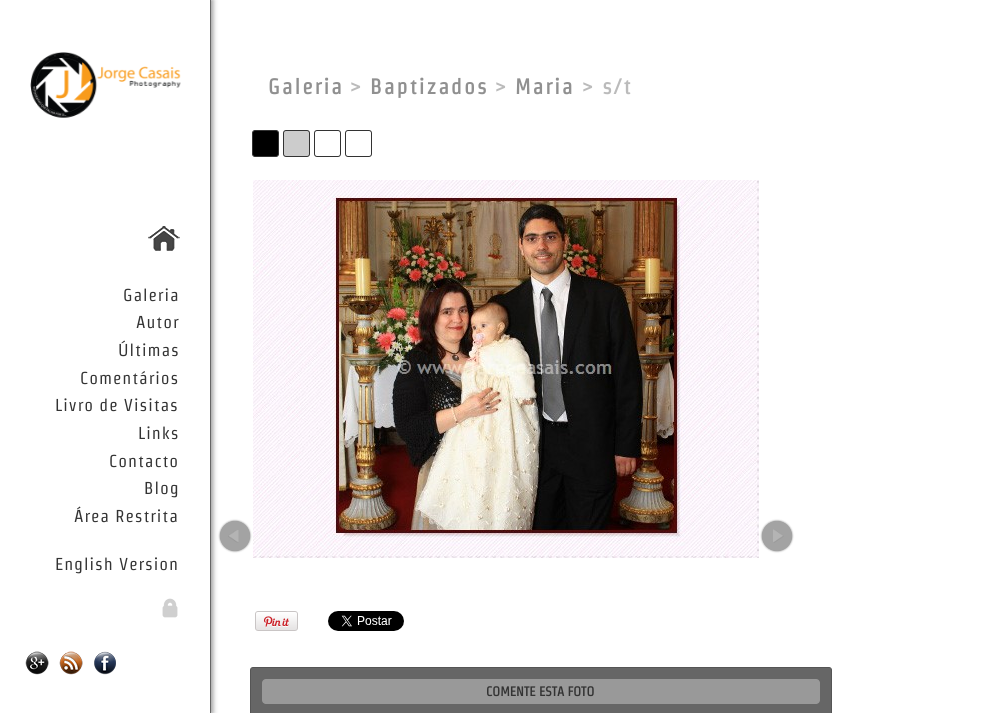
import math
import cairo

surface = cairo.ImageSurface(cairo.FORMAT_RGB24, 998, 713)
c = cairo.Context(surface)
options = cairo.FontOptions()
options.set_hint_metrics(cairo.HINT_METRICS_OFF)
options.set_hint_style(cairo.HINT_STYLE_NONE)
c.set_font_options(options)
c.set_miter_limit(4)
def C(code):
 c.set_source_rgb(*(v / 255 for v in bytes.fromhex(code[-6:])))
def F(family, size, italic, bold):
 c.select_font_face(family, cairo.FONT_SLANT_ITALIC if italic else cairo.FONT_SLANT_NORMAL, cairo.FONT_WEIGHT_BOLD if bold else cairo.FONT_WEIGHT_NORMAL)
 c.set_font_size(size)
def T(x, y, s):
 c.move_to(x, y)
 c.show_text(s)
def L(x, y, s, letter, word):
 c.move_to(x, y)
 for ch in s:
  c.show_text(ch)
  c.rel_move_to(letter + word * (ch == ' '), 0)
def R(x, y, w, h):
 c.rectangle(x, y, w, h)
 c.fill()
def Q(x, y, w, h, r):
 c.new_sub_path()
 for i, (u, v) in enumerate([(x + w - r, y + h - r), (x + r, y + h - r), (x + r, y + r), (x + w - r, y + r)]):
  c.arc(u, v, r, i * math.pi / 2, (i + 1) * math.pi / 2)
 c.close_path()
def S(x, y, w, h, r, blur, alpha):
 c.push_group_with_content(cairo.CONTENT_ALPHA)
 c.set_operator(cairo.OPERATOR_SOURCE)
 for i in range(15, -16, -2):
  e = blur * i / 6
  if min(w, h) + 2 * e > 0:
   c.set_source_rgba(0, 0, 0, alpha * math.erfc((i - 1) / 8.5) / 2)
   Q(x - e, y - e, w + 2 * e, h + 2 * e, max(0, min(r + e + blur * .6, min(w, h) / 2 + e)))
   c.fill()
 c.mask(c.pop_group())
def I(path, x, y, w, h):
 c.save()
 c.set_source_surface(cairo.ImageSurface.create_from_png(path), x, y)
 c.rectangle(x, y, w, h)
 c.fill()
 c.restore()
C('ffffff')
c.paint()
I('8.png',253,180,506,378)
C('666666')
S(220,521,30,30,15,1,1)
C('a3a3a3')
c.arc(235,536,15,0,2 * math.pi)
c.fill()
C('999999')
S(2,0,211,713,0,2.5,1)
C('ffffff')
R(0,0,210,713)
C('666666')
R(210,0,1,713)
I('1.png',30,52,151,66)
I('2.png',148,226,32,25)
F('Strait',17.25,0,0)
C('333333')
L(123,301,'Galeria',1,0)
L(136,328,'Autor',1,0)
L(118,356,'Últimas',1,0)
L(80,384,'Comentários',1,0)
L(55,411,'Livro de Visitas',1,0)
L(138,439,'Links',1,0)
L(109,467,'Contacto',1,0)
L(144,494,'Blog',1,0)
L(74,522,'Área Restrita',1,0)
L(55,570,'English Version',1,0)
I('3.png',162,598,16,20)
I('4.png',25,651,24,24)
I('5.png',59,651,24,24)
I('6.png',94,651,22,24)
F('Strait',21.5,0,1)
C('909090')
L(268,94,'Galeria',2,0)
C('bbbbbb')
L(350,94,'>',2,0)
C('909090')
L(370,94,'Baptizados',2,0)
C('bbbbbb')
L(495,94,'>',2,0)
C('909090')
L(515,94,'Maria',2,0)
C('bbbbbb')
L(582,94,'> s/t',2,0)
C('000000')
Q(252.5,130.5,26,26,2.5)
c.fill_preserve()
C('333333')
c.set_line_width(1)
c.stroke()
C('cccccc')
Q(283.5,130.5,26,26,2.5)
c.fill_preserve()
C('333333')
c.stroke()
Q(314.5,130.5,26,26,2.5)
c.stroke()
Q(345.5,130.5,26,26,2.5)
c.stroke()
I('7.png',228,530,11,13)
C('666666')
S(762,521,30,30,15,1,1)
C('a3a3a3')
c.arc(777,536,15,0,2 * math.pi)
c.fill()
I('9.png',773,529,11,14)
I('10.png',255,611,43,20)
I('11.png',328,611,76,20)
C('666666')
Q(250.5,667.5,581,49,2.5)
c.fill_preserve()
C('555555')
c.stroke()
C('999999')
Q(262,679,558,25,4)
c.fill()
F('Strait',13.25,0,1)
C('333333')
T(486,696,'COMENTE ESTA FOTO')
surface.write_to_png('o.png')
